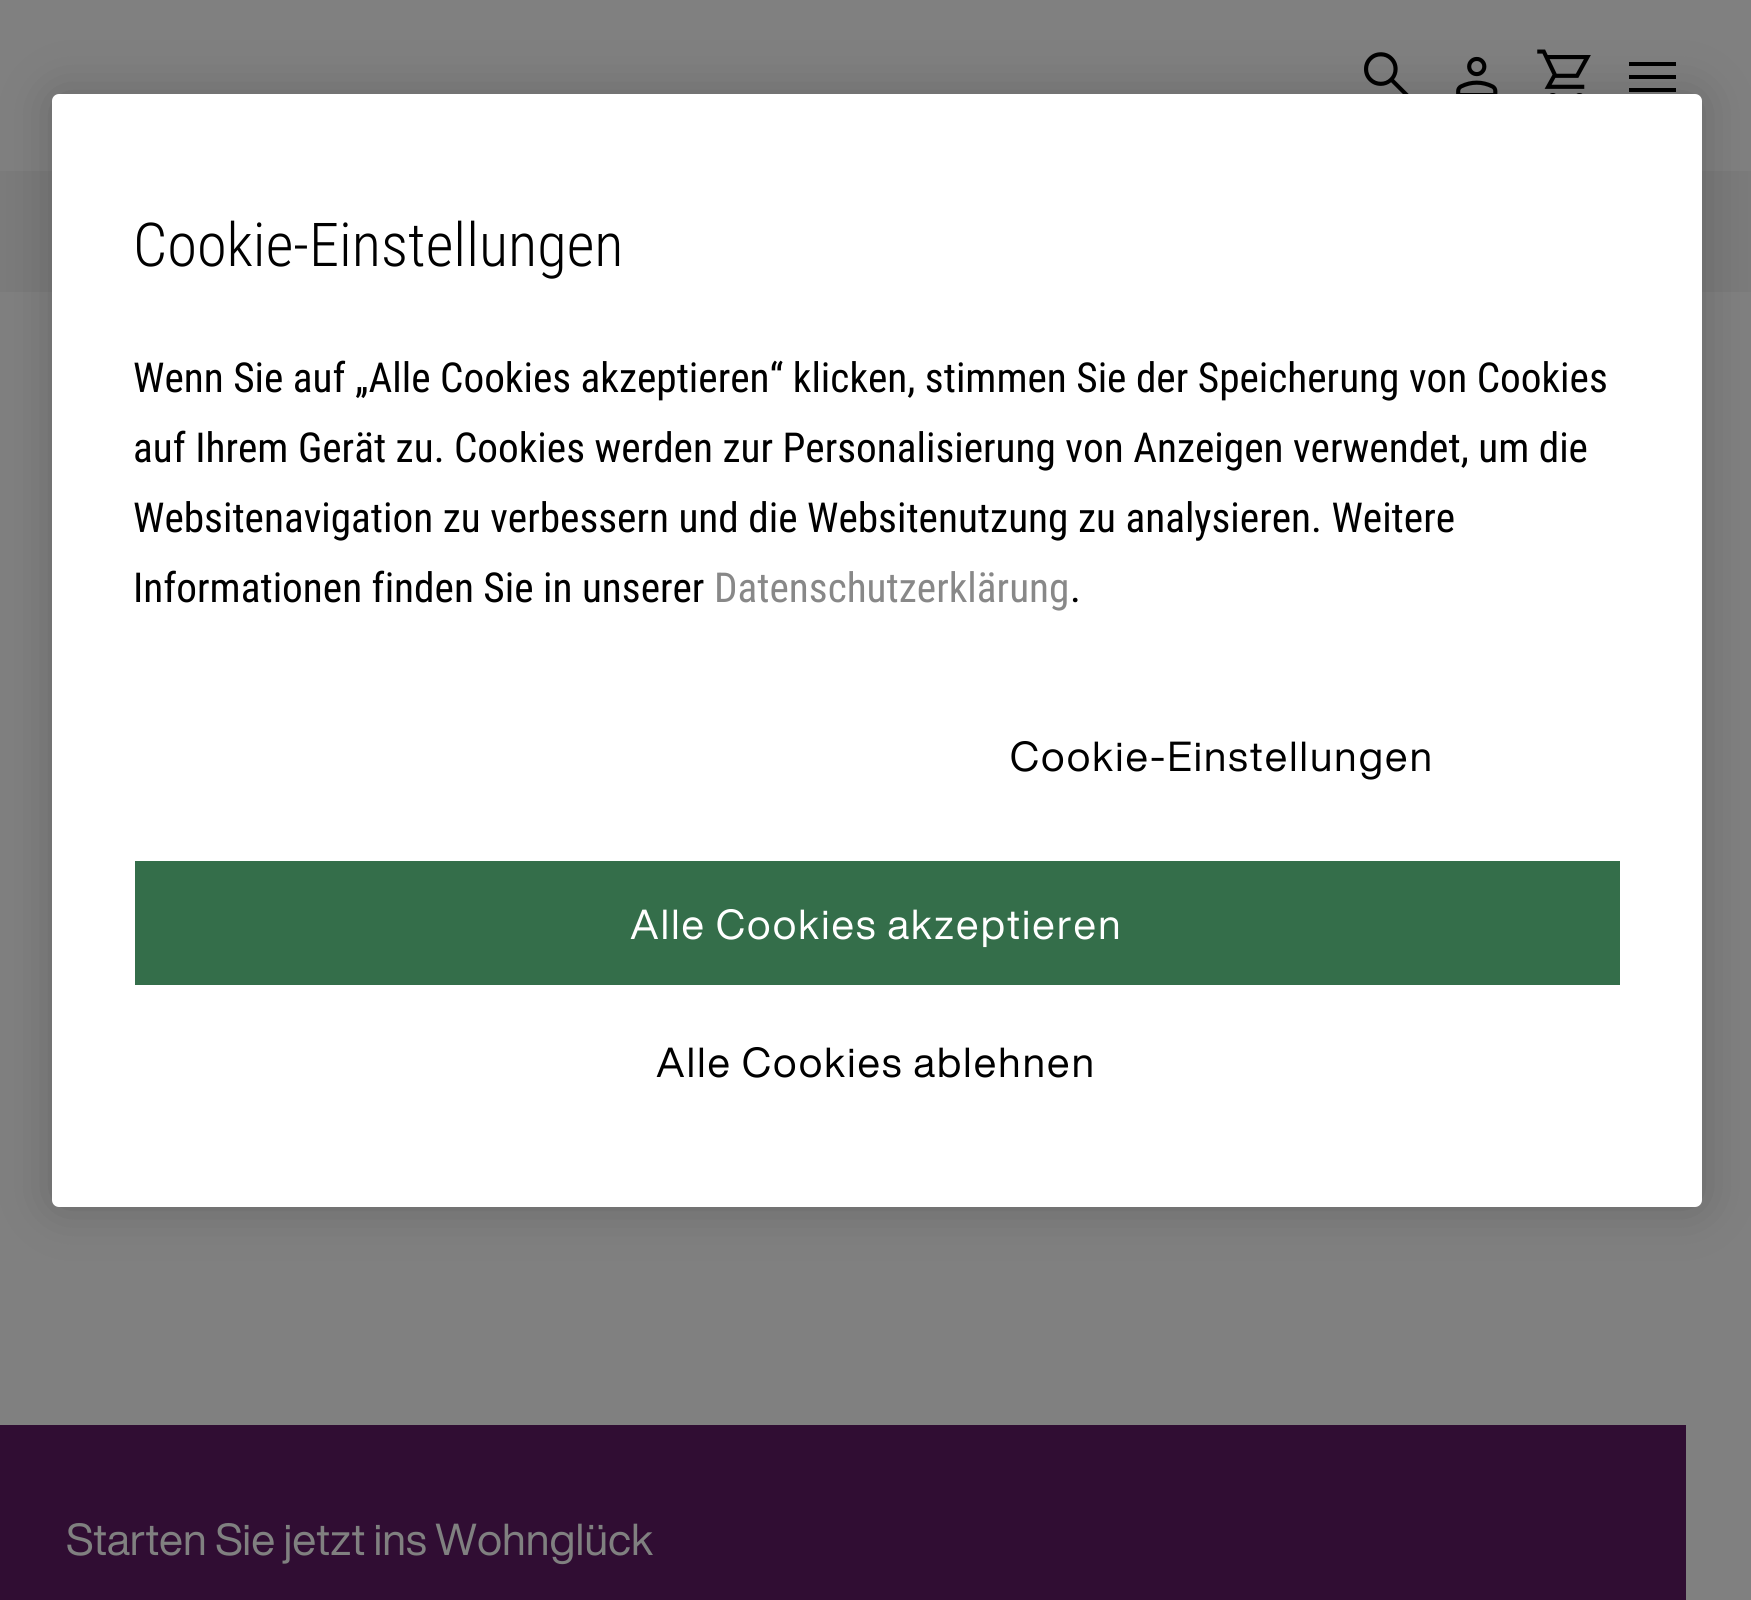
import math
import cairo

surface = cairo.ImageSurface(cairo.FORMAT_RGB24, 1751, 1600)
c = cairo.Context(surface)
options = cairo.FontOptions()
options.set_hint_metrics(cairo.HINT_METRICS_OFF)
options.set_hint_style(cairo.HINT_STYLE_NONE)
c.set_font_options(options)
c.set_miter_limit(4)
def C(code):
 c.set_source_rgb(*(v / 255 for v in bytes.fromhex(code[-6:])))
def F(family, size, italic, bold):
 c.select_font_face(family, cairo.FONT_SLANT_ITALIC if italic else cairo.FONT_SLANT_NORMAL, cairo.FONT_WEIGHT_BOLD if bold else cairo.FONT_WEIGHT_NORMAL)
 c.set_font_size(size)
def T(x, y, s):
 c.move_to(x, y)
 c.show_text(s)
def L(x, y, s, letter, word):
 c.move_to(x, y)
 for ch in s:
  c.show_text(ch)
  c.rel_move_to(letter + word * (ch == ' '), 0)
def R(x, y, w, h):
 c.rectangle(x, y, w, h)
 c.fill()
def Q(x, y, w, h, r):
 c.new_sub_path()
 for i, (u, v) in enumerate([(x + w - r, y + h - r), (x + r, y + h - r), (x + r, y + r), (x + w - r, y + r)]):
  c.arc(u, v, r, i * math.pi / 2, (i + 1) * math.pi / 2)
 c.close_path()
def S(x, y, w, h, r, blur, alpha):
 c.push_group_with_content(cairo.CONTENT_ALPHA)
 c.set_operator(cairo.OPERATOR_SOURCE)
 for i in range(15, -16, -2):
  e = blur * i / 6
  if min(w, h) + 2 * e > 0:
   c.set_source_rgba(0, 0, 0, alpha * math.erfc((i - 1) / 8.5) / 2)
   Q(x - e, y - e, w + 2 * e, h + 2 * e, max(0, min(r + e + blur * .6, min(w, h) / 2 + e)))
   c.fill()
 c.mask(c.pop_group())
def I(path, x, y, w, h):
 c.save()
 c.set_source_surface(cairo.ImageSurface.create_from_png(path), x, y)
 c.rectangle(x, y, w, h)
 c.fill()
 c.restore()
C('808080')
c.paint()
I('1.png',1364,52,45,42)
I('2.png',1456,56,42,38)
I('3.png',1537,49,54,45)
C('000000')
c.new_path()
c.move_to(1629,92)
c.line_to(1629,88)
c.line_to(1676,88)
c.line_to(1676,92)
c.close_path()
c.move_to(1629,79)
c.line_to(1629,75)
c.line_to(1676,75)
c.line_to(1676,79)
c.close_path()
c.move_to(1629,66)
c.line_to(1629,62)
c.line_to(1676,62)
c.line_to(1676,66)
c.close_path()
c.fill()
C('7b7b7b')
R(0,171,1751,121)
C('000000')
S(52,94,1650,1113,7,25,.2)
C('ffffff')
Q(52,94,1650,1113,7)
c.fill()
F('Roboto Condensed Light',60.5,0,0)
C('000000')
T(133,266,'Cookie-Einstellungen')
F('Roboto Condensed',41.25,0,0)
T(133,392,'Wenn Sie auf „Alle Cookies akzeptieren“ klicken, stimmen Sie der Speicherung von Cookies')
T(133,462,'auf Ihrem Gerät zu. Cookies werden zur Personalisierung von Anzeigen verwendet, um die')
T(133,532,'Websitenavigation zu verbessern und die Websitenutzung zu analysieren. Weitere')
T(133,602,'Informationen finden Sie in unserer')
C('888888')
T(714,602,'Datenschutzerklärung')
C('000000')
T(1070,602,'.')
F('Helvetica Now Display',41.25,0,0)
L(1010,771,'Cookie-Einstellungen',2.1,0)
C('346e4a')
R(135,861,1485,124)
C('ffffff')
L(630,939,'Alle Cookies akzeptieren',2.1,0)
C('000000')
L(656,1077,'Alle Cookies ablehnen',2.1,0)
C('300d33')
R(0,1425,1686,175)
F('Helvetica Now Display',44,0,0)
C('808080')
T(66,1555,'Starten Sie jetzt ins Wohnglück')
surface.write_to_png('o.png')
